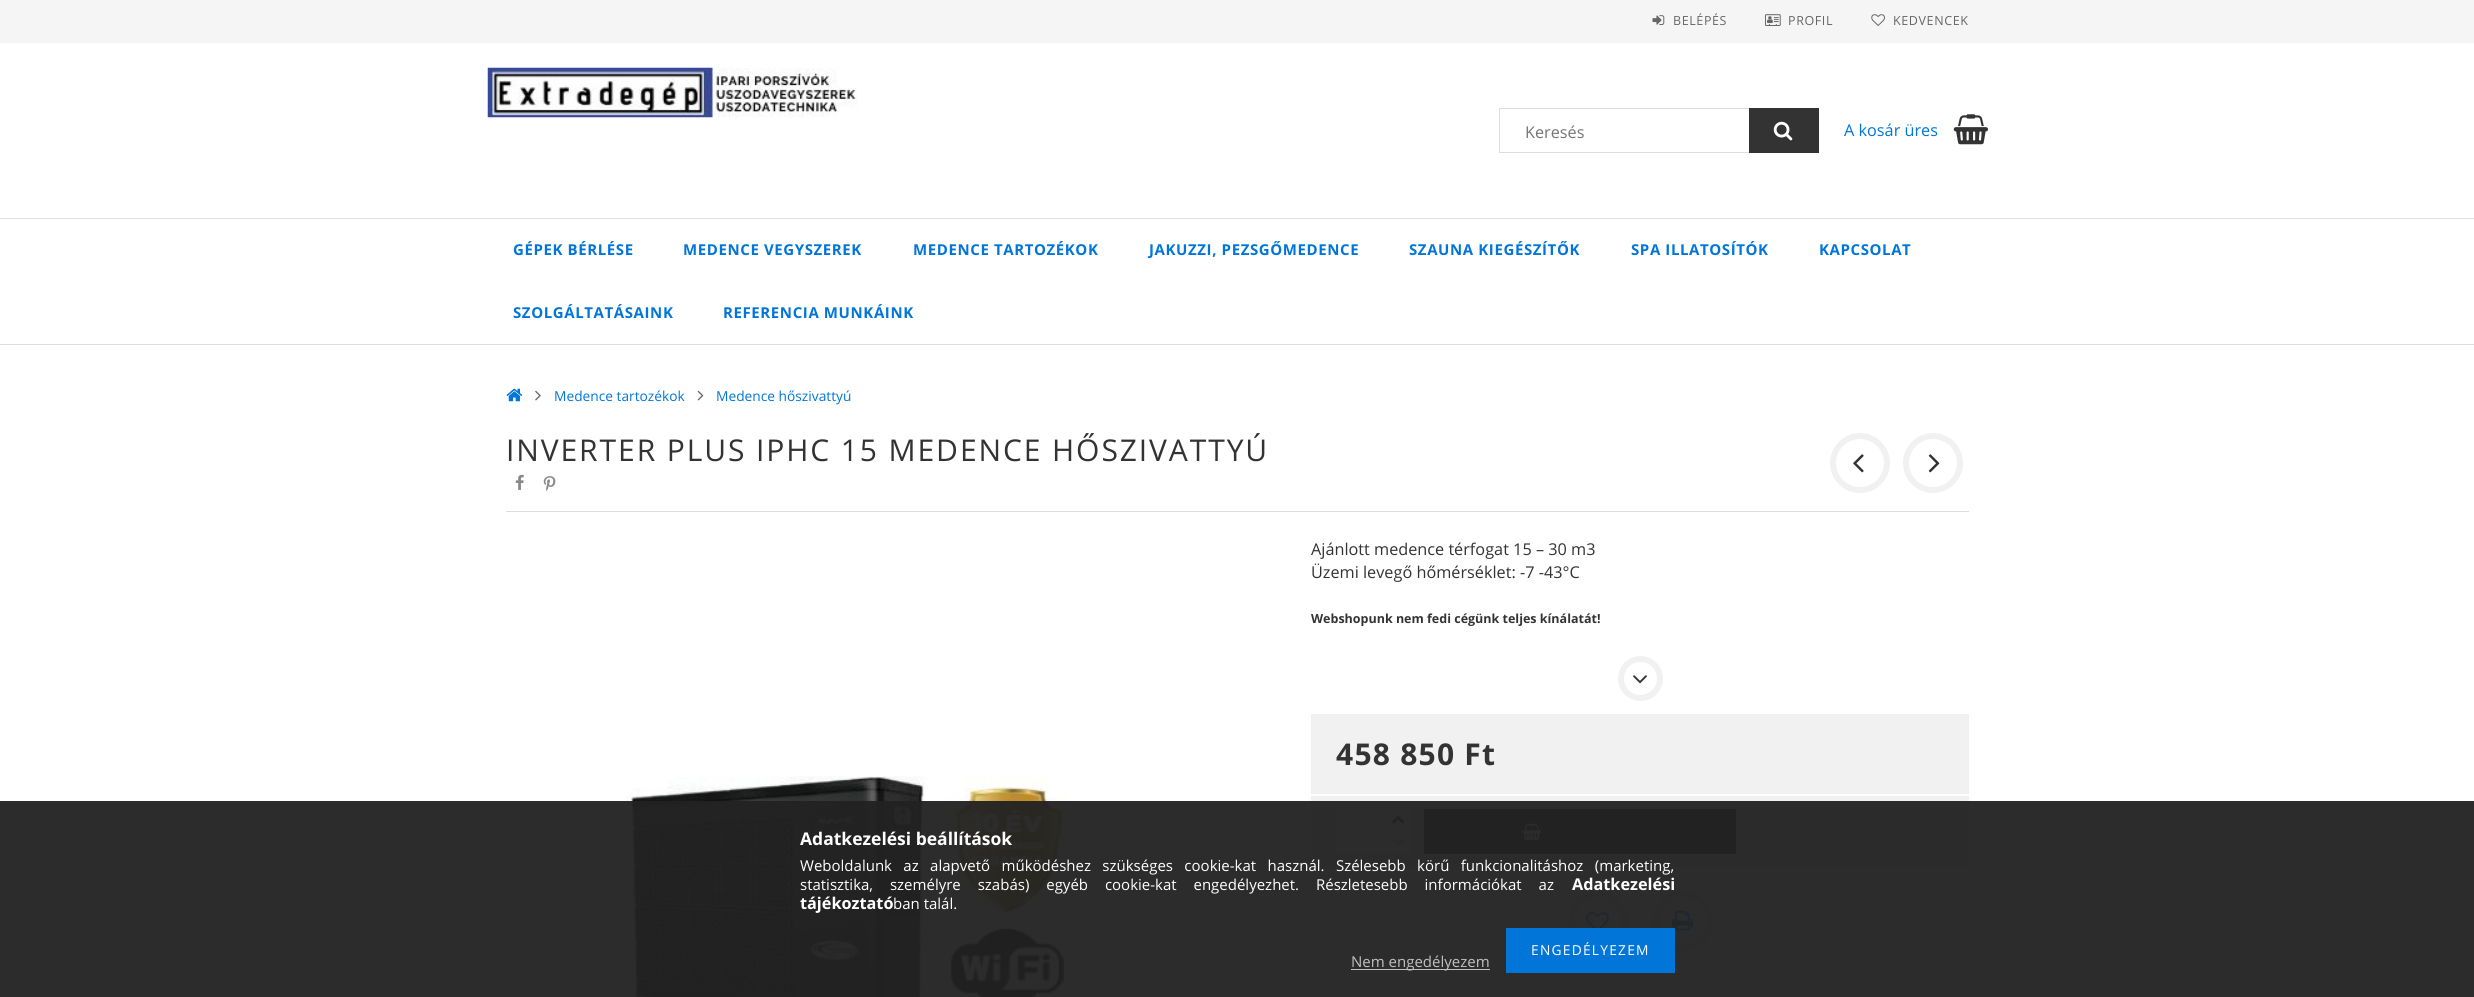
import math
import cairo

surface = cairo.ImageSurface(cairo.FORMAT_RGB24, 2474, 997)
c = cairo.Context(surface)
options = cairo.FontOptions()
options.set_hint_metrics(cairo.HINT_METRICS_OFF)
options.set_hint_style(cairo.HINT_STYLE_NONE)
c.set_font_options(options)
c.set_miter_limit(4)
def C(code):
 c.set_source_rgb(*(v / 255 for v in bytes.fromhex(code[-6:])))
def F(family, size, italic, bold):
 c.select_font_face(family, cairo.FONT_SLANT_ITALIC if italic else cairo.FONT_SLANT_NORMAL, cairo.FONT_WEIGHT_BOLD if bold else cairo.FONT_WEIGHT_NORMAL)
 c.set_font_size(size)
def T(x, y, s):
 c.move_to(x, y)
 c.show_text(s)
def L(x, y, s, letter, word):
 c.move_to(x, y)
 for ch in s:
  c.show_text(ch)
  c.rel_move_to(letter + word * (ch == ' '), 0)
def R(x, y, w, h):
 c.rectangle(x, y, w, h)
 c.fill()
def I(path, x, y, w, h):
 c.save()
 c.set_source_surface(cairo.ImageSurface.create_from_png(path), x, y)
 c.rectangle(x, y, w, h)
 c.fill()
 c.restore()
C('ffffff')
c.paint()
C('f5f5f5')
R(0,0,2474,43)
I('1.png',1652,15,13,10)
F('Open Sans',12.5,0,0)
C('666666')
L(1673,25,'BELÉPÉS',.6,0)
I('2.png',1765,14,16,12)
L(1788,25,'PROFIL',.6,0)
I('3.png',1871,14,14,12)
L(1893,25,'KEDVENCEK',.6,0)
I('4.png',487,67,371,51)
c.rectangle(1499.5,108.5,319,44)
C('dddddd')
c.set_line_width(1)
c.stroke()
F('Open Sans',16.25,0,0)
C('757575')
T(1525,138,'Keresés')
C('333333')
R(1749,108,70,45)
I('5.png',1773,121,20,20)
C('0275d8')
T(1844,136,'A kosár üres')
I('6.png',1953,114,35,31)
C('dddddd')
R(0,218,2474,1)
R(0,344,2474,1)
F('Open Sans',15,0,1)
C('0275d8')
L(513,255,'GÉPEK BÉRLÉSE',.6,0)
L(683,255,'MEDENCE VEGYSZEREK',.6,0)
L(913,255,'MEDENCE TARTOZÉKOK',.6,0)
L(1149,255,'JAKUZZI, PEZSGŐMEDENCE',.6,0)
L(1409,255,'SZAUNA KIEGÉSZÍTŐK',.6,0)
L(1631,255,'SPA ILLATOSÍTÓK',.6,0)
L(1819,255,'KAPCSOLAT',.6,0)
L(513,318,'SZOLGÁLTATÁSAINK',.6,0)
L(723,318,'REFERENCIA MUNKÁINK',.6,0)
I('7.png',506,388,17,14)
I('8.png',535,390,6,11)
F('Open Sans',13.75,0,0)
T(554,401,'Medence tartozékok')
I('9.png',697,390,7,11)
T(716,401,'Medence hőszivattyú')
C('dddddd')
R(506,511,1463,1)
F('Open Sans',30,0,0)
C('333333')
L(506,461,'INVERTER PLUS IPHC 15 MEDENCE HŐSZIVATTYÚ',1.9,0)
I('10.png',515,474,9,16)
I('11.png',543,476,13,15)
c.arc(1860,463,27,0,2 * math.pi)
C('f1f1f1')
c.set_line_width(6)
c.stroke()
I('12.png',1853,454,11,19)
c.arc(1933,463,27,0,2 * math.pi)
c.stroke()
I('13.png',1928,454,12,19)
F('Open Sans',16.25,0,0)
C('333333')
T(1311,555,'Ajánlott medence térfogat 15 – 30 m3')
T(1311,578,'Üzemi levegő hőmérséklet: -7 -43°C')
F('Open Sans',12.5,0,1)
T(1311,623,'Webshopunk nem fedi cégünk teljes kínálatát!')
c.new_path()
c.arc(1640.5,678.5,19.5,0,2 * math.pi)
C('f1f1f1')
c.stroke()
I('14.png',1633,675,14,9)
R(1311,714,658,80)
F('Open Sans',30,0,1)
C('333333')
L(1336,765,'458 850 Ft',1.25,0)
C('f1f1f1')
R(1311,796,658,70)
C('ffffff')
R(1336,809,50,45)
R(1386,809,25,45)
I('15.png',1392,815,13,9)
I('16.png',1392,838,13,9)
C('333333')
R(1424,809,312,45)
I('17.png',1522,823,20,17)
c.arc(1598,921,27,0,2 * math.pi)
C('f1f1f1')
c.stroke()
I('18.png',1586,912,23,16)
c.arc(1683,921,27,0,2 * math.pi)
c.stroke()
I('19.png',1672,911,21,20)
I('20.png',626,776,441,221)
c.set_source_rgba(0.133,0.133,0.133,0.95)
R(0,801,2474,196)
F('Open Sans',17.5,0,1)
C('ffffff')
T(800,845,'Adatkezelési beállítások')
F('Open Sans',15,0,0)
L(800,871,'Weboldalunk az alapvető működéshez szükséges cookie-kat használ. Szélesebb körű funkcionalitáshoz (marketing,',0,7.5)
L(800,890,'statisztika, személyre szabás) egyéb cookie-kat engedélyezhet. Részletesebb információkat az',0,13)
F('Open Sans',16.25,0,1)
T(1572,890,'Adatkezelési')
T(800,909,'tájékoztató')
F('Open Sans',15,0,0)
T(893,909,'ban talál.')
C('0275d8')
R(1506,928,169,45)
F('Open Sans',13.75,0,0)
C('ffffff')
L(1531,955,'ENGEDÉLYEZEM',1.25,0)
C('c0c0c0')
R(1351,969,139,1)
F('Open Sans',15,0,0)
T(1351,967,'Nem engedélyezem')
surface.write_to_png('o.png')
